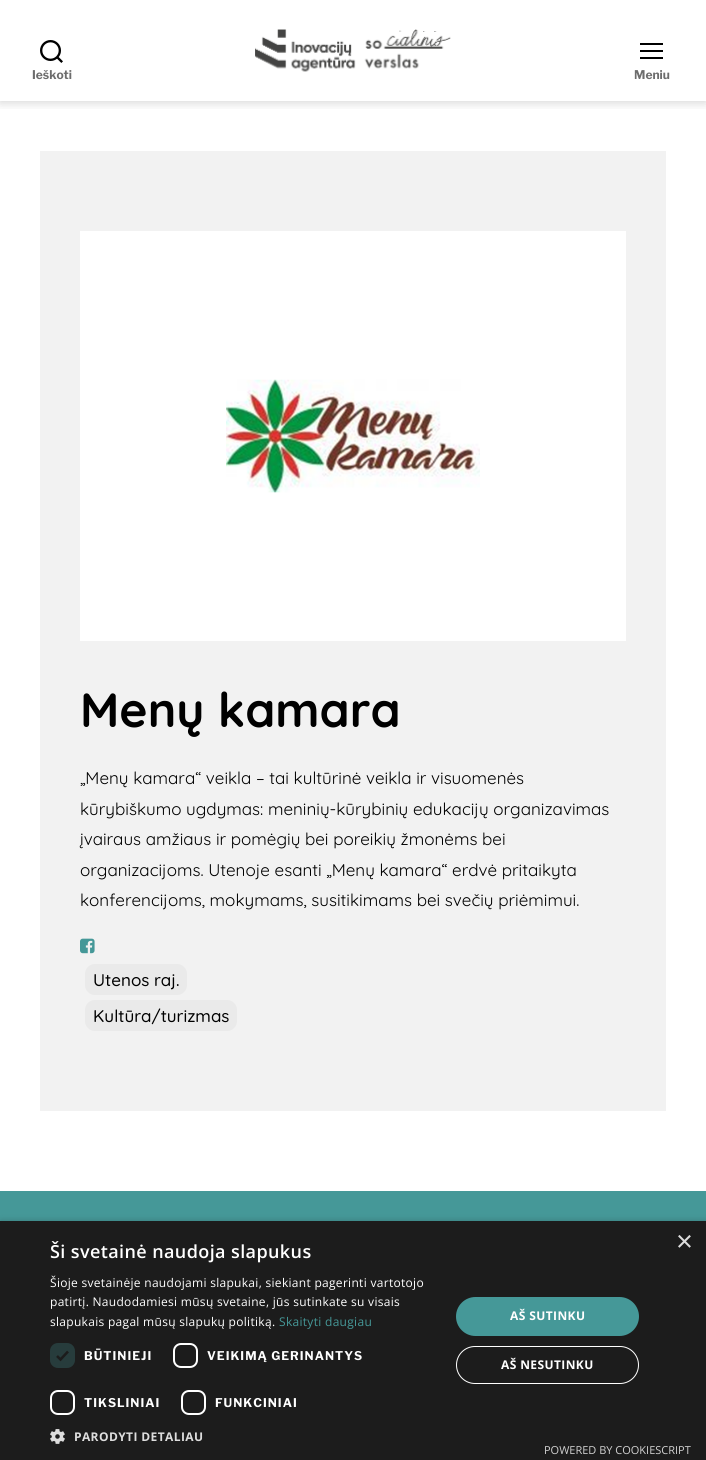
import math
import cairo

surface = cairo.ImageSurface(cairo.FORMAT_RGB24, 706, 1460)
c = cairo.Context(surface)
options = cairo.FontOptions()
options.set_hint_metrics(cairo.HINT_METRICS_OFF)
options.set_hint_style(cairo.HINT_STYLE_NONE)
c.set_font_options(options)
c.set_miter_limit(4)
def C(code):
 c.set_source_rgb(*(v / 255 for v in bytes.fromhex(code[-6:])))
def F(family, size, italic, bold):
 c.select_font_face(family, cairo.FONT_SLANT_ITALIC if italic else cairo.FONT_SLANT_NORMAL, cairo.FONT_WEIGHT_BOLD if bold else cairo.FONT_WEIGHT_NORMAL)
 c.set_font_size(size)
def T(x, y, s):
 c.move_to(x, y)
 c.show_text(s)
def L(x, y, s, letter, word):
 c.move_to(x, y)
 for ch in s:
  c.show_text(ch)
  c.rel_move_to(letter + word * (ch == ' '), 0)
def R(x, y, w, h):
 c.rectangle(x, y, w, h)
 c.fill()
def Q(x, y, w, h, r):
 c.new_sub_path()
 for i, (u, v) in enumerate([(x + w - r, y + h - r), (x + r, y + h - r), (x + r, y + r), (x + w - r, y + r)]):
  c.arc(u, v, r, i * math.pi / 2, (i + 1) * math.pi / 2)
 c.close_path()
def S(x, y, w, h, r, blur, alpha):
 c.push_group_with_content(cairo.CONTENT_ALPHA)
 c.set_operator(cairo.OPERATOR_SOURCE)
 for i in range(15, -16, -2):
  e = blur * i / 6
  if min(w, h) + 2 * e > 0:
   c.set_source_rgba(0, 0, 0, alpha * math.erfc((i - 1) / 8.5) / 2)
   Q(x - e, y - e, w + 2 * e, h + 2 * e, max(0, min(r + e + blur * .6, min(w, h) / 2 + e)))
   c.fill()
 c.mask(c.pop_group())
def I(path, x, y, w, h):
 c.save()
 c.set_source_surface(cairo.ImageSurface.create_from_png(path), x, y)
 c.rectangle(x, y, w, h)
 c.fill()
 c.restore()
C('ffffff')
c.paint()
c.save()
c.rectangle(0,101,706,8)
c.clip()
C('000000')
S(0,2,706,101,0,5,.16)
c.restore()
I('1.png',255,29,196,43)
I('2.png',40,40,23,23)
F('Libre Franklin',12,0,1)
C('6d6d6d')
T(32,79,'Ieškoti')
C('000000')
R(640,43,23,2)
R(640,57,23,2)
R(640,50,23,2)
C('6d6d6d')
T(634,79,'Meniu')
C('f2f2f2')
R(40,151,626,960)
I('3.png',80,231,546,410)
F('Quicksand',48,0,1)
C('000000')
T(80,727,'Menų kamara')
F('Quicksand',17,0,0)
T(80,784,'„Menų kamara“ veikla – tai kultūrinė veikla ir visuomenės')
T(80,815,'kūrybiškumo ugdymas: meninių-kūrybinių edukacijų organizavimas')
T(80,845,'įvairaus amžiaus ir pomėgių bei poreikių žmonėms bei')
T(80,876,'organizacijoms. Utenoje esanti „Menų kamara“ erdvė pritaikyta')
T(80,906,'konferencijoms, mokymams, susitikimams bei svečių priėmimui.')
I('4.png',80,938,15,16)
C('eaeaea')
Q(85,964,102,31,10)
c.fill()
F('Quicksand Medium',17,0,0)
C('000000')
T(93,986,'Utenos raj.')
C('eaeaea')
Q(85,1000,152,31,10)
c.fill()
C('000000')
T(93,1022,'Kultūra/turizmas')
C('459898')
R(0,1191,706,30)
C('000000')
S(1,1223,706,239,0,4,.35)
C('1c1c1c')
R(0,1221,706,239)
F('Open Sans SemiBold',18,0,0)
C('ffffff')
L(50,1258,'Ši svetainė naudoja slapukus',.4,0)
F('Open Sans',12,0,0)
L(50,1287,'Šioje svetainėje naudojami slapukai, siekiant pagerinti vartotojo',.3,0)
L(50,1306,'patirtį. Naudodamiesi mūsų svetaine, jūs sutinkate su visais',.3,0)
L(50,1326,'slapukais pagal mūsų slapukų politiką.',.3,0)
C('459898')
L(279,1326,'Skaityti daugiau',.3,0)
C('273c3c')
Q(50,1343,25,25,8)
c.fill()
c.new_path()
c.move_to(57,1356)
c.line_to(60.5,1359.5)
c.line_to(68,1351.5)
C('1c1c1c')
c.set_line_width(2.6)
c.stroke()
F('Libre Franklin',12,0,1)
C('ffffff')
L(84,1360,'BŪTINIEJI',1,0)
Q(174,1344,23,23,7)
c.set_line_width(2)
c.stroke()
L(207,1360,'VEIKIMĄ GERINANTYS',1,0)
Q(51,1391,23,23,7)
c.stroke()
L(84,1407,'TIKSLINIAI',1,0)
Q(182,1391,23,23,7)
c.stroke()
L(215,1407,'FUNKCINIAI',1,0)
I('5.png',50,1429,15,15)
F('Open Sans',12,0,1)
C('dddddd')
L(74,1441,'PARODYTI DETALIAU',.4,0)
C('459898')
Q(456,1297,183,39,19.5)
c.fill()
C('ffffff')
L(510,1320,'AŠ SUTINKU',.4,0)
Q(456.5,1346.5,182,37,18.5)
c.set_line_width(1)
c.stroke()
L(501,1369,'AŠ NESUTINKU',.4,0)
F('Liberation Sans',29,0,0)
C('dddddd')
T(676,1251,'×')
F('Open Sans',11,0,0)
C('d2d2d2')
T(544,1454,'POWERED BY COOKIESCRIPT')
surface.write_to_png('o.png')
